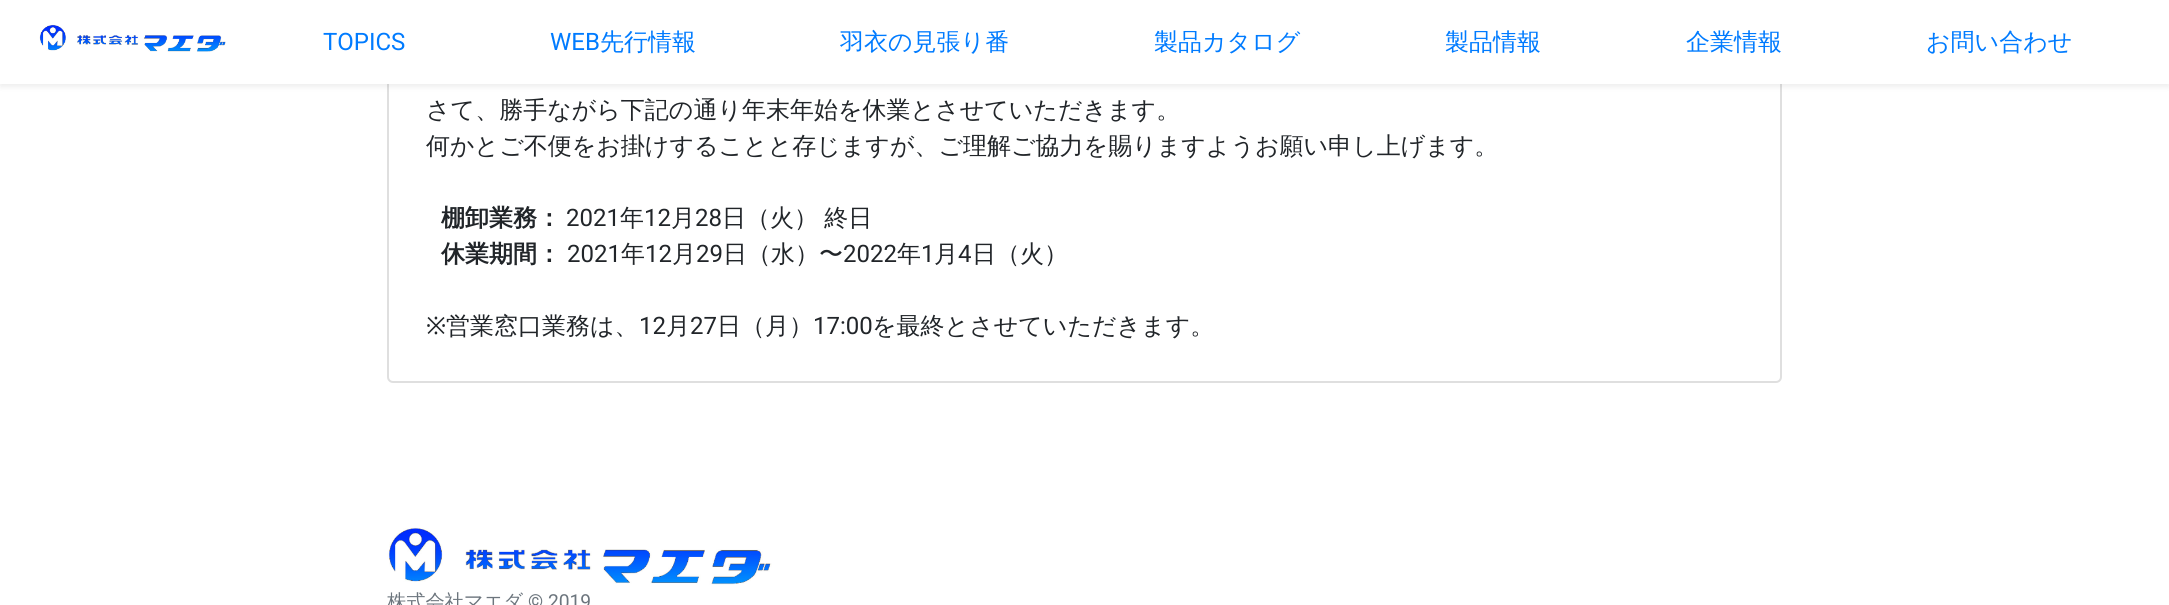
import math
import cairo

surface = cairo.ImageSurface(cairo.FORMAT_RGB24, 2169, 605)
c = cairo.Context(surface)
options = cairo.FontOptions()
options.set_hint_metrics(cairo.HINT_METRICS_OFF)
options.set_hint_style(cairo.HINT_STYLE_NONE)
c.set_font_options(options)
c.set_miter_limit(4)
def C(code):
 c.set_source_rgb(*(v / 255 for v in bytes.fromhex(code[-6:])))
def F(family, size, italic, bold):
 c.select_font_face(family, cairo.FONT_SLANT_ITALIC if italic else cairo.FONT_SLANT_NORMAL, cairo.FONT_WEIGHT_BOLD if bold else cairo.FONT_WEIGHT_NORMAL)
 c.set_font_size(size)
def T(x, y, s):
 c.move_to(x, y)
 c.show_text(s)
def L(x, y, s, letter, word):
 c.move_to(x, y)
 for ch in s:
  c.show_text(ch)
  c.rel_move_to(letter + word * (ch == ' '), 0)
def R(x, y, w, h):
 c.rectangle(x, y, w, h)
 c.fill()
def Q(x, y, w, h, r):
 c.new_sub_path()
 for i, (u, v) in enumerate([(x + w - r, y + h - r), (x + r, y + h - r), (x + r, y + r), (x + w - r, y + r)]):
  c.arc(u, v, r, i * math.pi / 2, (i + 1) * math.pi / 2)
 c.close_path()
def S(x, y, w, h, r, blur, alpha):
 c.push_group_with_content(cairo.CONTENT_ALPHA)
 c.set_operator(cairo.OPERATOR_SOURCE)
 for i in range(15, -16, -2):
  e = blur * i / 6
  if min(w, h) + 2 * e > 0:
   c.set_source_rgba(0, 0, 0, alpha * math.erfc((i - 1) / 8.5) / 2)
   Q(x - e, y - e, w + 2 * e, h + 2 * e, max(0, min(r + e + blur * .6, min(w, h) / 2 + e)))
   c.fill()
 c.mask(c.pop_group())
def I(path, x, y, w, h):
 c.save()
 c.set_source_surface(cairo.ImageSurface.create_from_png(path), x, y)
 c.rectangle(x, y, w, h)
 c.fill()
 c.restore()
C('ffffff')
c.paint()
Q(388,18,1393,364,5)
C('dfdfdf')
c.stroke()
C('000000')
S(0,3,2169,84,0,3,.07)
C('ffffff')
R(0,0,2169,84)
I('1.png',39,24,187,28)
F('Roboto',24,0,0)
C('007bff')
T(323,50,'TOPICS')
T(550,50,'WEB')
F('WenQuanYi Zen Hei Medium',24,0,0)
T(600,50,'先行情報')
T(840,50,'羽衣の見張り番')
T(1154,50,'製品カタログ')
T(1445,50,'製品情報')
T(1686,50,'企業情報')
T(1926,50,'お問い合わせ')
C('212529')
T(426,118,'さて、勝手ながら下記の通り年末年始を休業とさせていただきます。')
T(426,154,'何かとご不便をお掛けすることと存じますが、ご理解ご協力を賜りますようお願い申し上げます。')
F('WenQuanYi Zen Hei',24,0,1)
T(441,226,'棚卸業務：')
F('Roboto',24,0,0)
T(566,226,'2021')
F('WenQuanYi Zen Hei Medium',24,0,0)
T(620,226,'年')
F('Roboto',24,0,0)
T(644,226,'12')
F('WenQuanYi Zen Hei Medium',24,0,0)
T(671,226,'月')
F('Roboto',24,0,0)
T(695,226,'28')
F('WenQuanYi Zen Hei Medium',24,0,0)
L(722,226,'日（火） 終日',0,-1)
F('WenQuanYi Zen Hei',24,0,1)
T(441,262,'休業期間：')
F('Roboto',24,0,0)
T(567,262,'2021')
F('WenQuanYi Zen Hei Medium',24,0,0)
T(621,262,'年')
F('Roboto',24,0,0)
T(645,262,'12')
F('WenQuanYi Zen Hei Medium',24,0,0)
T(672,262,'月')
F('Roboto',24,0,0)
T(696,262,'29')
F('WenQuanYi Zen Hei Medium',24,0,0)
T(723,262,'日（水）〜')
F('Roboto',24,0,0)
T(843,262,'2022')
F('WenQuanYi Zen Hei Medium',24,0,0)
T(897,262,'年')
F('Roboto',24,0,0)
T(921,262,'1')
F('WenQuanYi Zen Hei Medium',24,0,0)
T(934,262,'月')
F('Roboto',24,0,0)
T(958,262,'4')
F('WenQuanYi Zen Hei Medium',24,0,0)
T(972,262,'日（火）')
F('Noto Sans',24,0,0)
T(426,334,'※')
F('WenQuanYi Zen Hei Medium',24,0,0)
T(446,334,'営業窓口業務は、')
F('Roboto',24,0,0)
T(639,334,'12')
F('WenQuanYi Zen Hei Medium',24,0,0)
T(666,334,'月')
F('Roboto',24,0,0)
T(690,334,'27')
F('WenQuanYi Zen Hei Medium',24,0,0)
T(717,334,'日（月）')
F('Roboto',24,0,0)
T(813,334,'17:00')
F('WenQuanYi Zen Hei Medium',24,0,0)
T(872,334,'を最終とさせていただきます。')
I('2.png',387,527,385,58)
F('WenQuanYi Zen Hei Medium',19.25,0,0)
C('6c757d')
T(387,608,'株式会社マエダ')
F('Roboto',19.25,0,0)
T(528,608,'© 2019')
surface.write_to_png('o.png')
